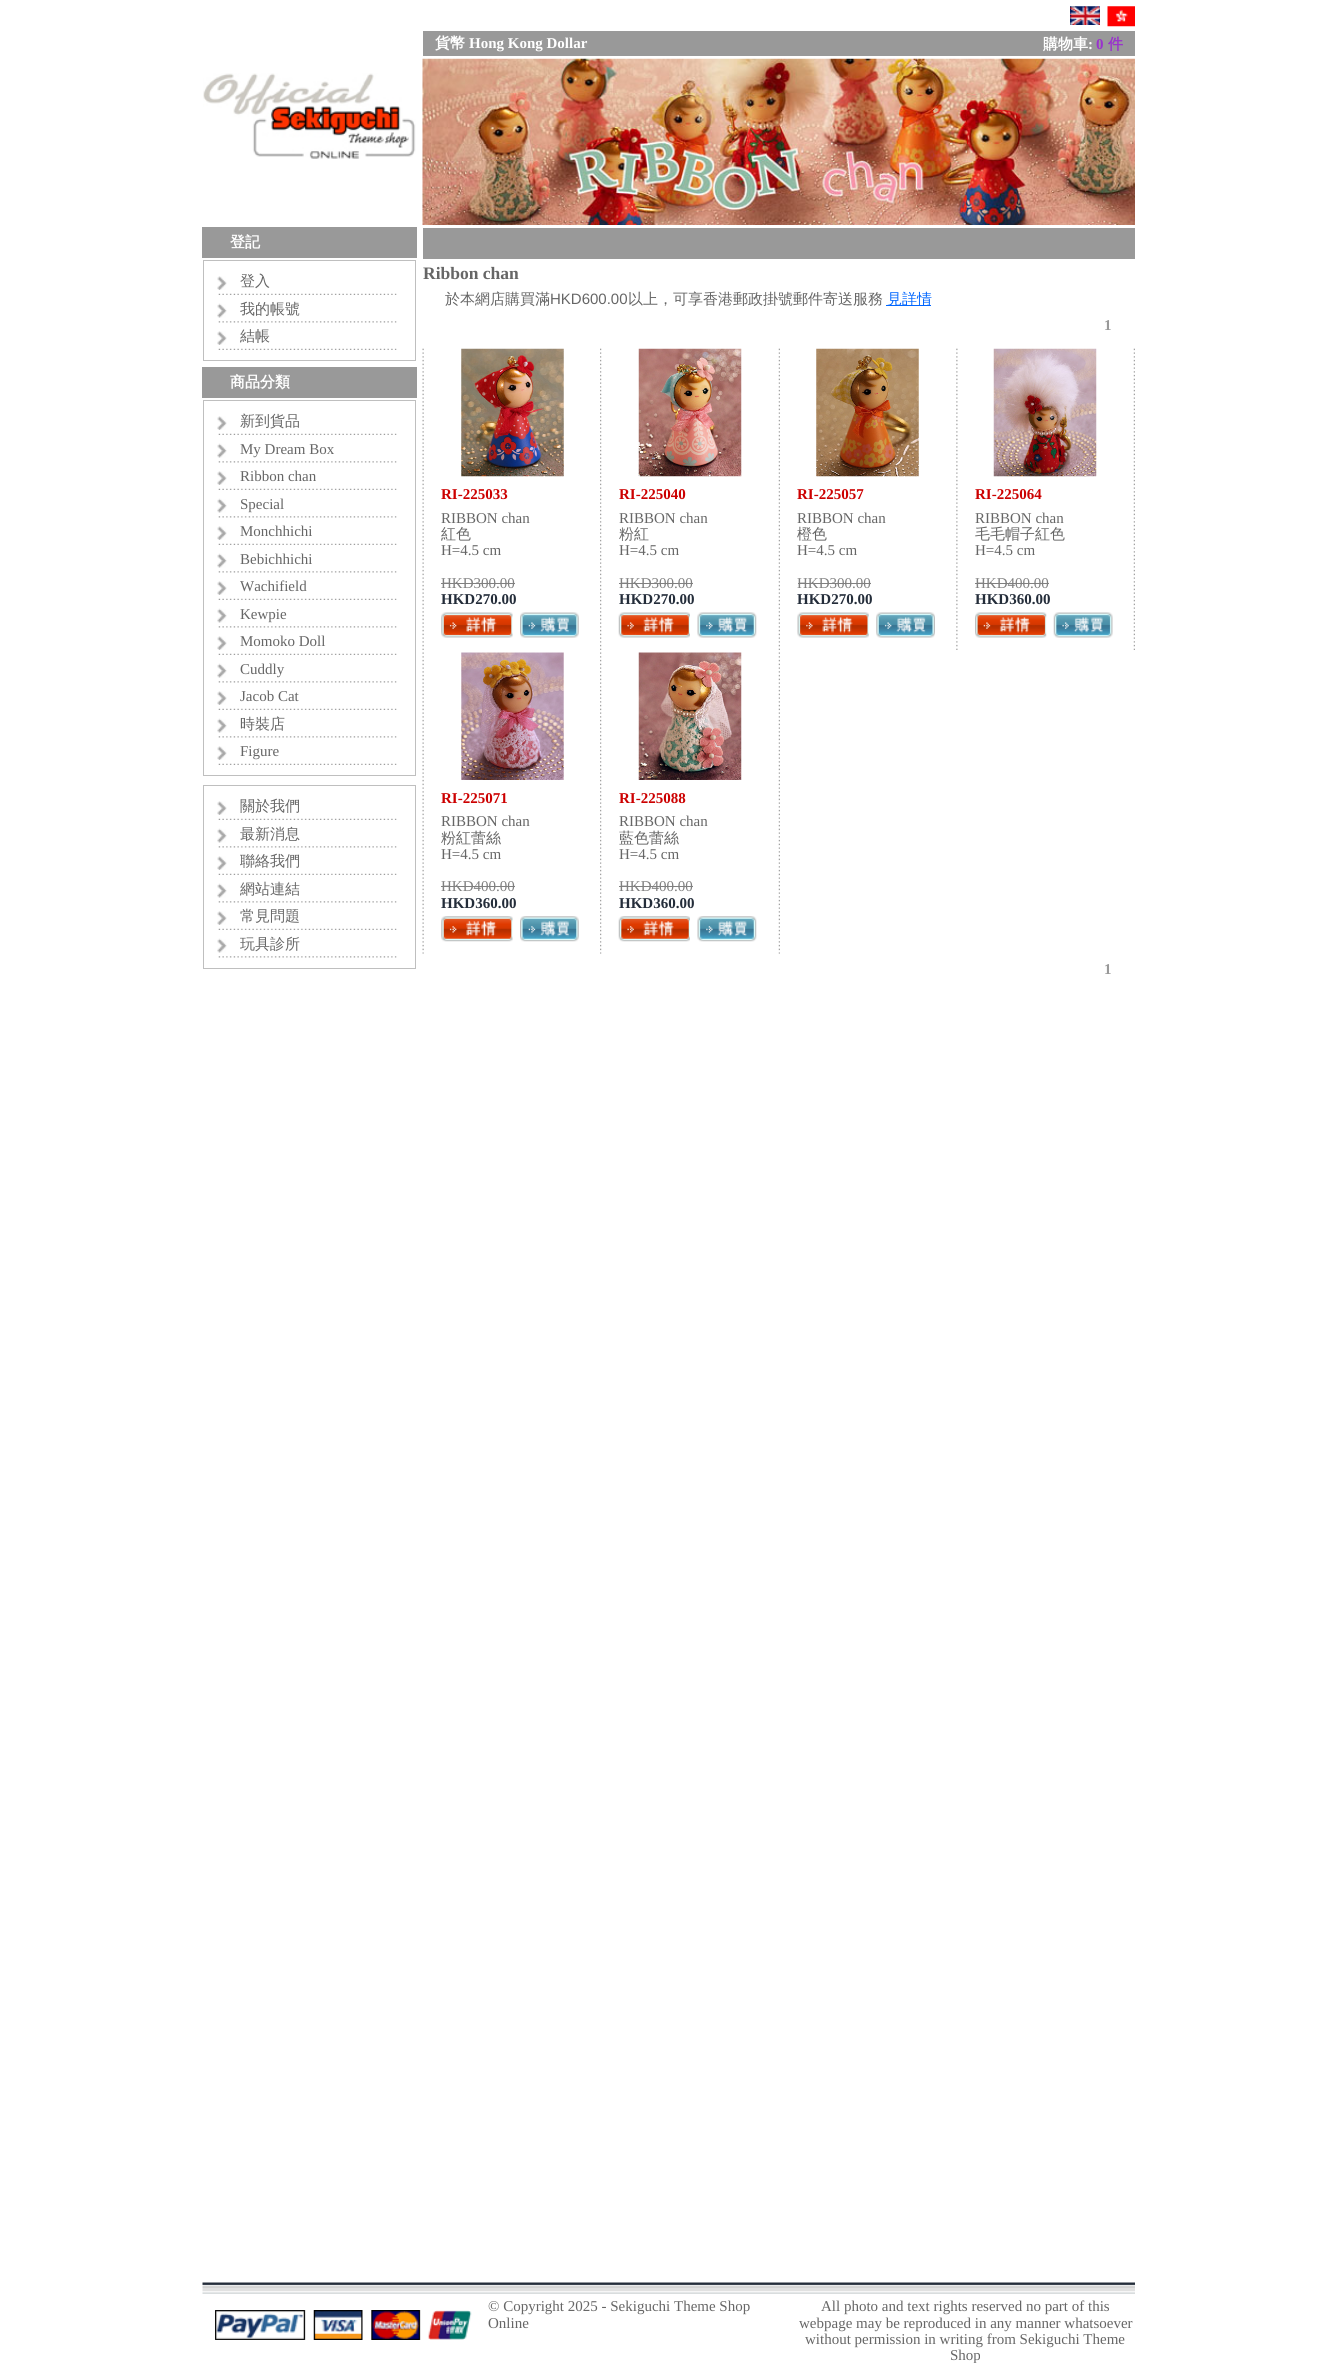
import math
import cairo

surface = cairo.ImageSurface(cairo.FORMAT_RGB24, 1337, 2363)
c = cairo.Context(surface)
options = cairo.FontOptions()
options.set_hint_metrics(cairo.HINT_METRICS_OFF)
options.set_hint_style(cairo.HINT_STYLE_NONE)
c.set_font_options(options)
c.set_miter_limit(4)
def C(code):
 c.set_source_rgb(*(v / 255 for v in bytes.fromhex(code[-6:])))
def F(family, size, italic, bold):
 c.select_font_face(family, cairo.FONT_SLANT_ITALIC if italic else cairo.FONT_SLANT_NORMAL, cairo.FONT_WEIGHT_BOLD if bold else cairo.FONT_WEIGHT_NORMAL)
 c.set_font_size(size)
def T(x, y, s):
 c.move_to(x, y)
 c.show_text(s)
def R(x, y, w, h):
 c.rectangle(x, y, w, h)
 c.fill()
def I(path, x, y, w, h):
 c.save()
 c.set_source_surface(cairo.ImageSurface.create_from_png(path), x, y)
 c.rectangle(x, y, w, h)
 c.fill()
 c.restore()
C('ffffff')
c.paint()
I('1.png',1070,6,30,19)
I('2.png',1107,6,28,21)
C('999999')
R(423,31,712,25)
F('WenQuanYi Zen Hei',15,0,1)
C('ffffff')
T(435,48,'貨幣')
F('Liberation Serif',15,0,1)
T(469,48,'Hong Kong Dollar')
F('WenQuanYi Zen Hei',15,0,1)
T(1043,49,'購物車')
F('Liberation Serif',15,0,1)
T(1088,49,':')
C('9933cc')
T(1096,49,'0')
F('WenQuanYi Zen Hei',15,0,1)
T(1108,49,'件')
I('3.png',422,58,713,167)
I('4.png',203,73,213,86)
C('999999')
R(202,227,215,31)
C('ffffff')
T(230,247,'登記')
c.rectangle(203.5,260.5,212,100)
C('bfbfbf')
c.set_line_width(1)
c.stroke()
I('5.png',218,293,179,2)
I('6.png',217,276,10,14)
F('WenQuanYi Zen Hei Medium',15,0,0)
C('666666')
T(240,286,'登入')
I('7.png',218,321,179,2)
I('8.png',217,303,10,15)
T(240,314,'我的帳號')
I('5.png',218,348,179,2)
I('6.png',217,331,10,14)
T(240,341,'結帳')
C('999999')
R(202,367,215,31)
F('WenQuanYi Zen Hei',15,0,1)
C('ffffff')
T(230,387,'商品分類')
c.rectangle(203.5,400.5,212,375)
C('bfbfbf')
c.stroke()
I('5.png',218,433,179,2)
I('6.png',217,416,10,14)
F('WenQuanYi Zen Hei Medium',15,0,0)
C('666666')
T(240,426,'新到貨品')
I('7.png',218,461,179,2)
I('8.png',217,443,10,15)
F('Liberation Serif',15,0,0)
T(240,454,'My Dream Box')
I('5.png',218,488,179,2)
I('6.png',217,471,10,14)
T(240,481,'Ribbon chan')
I('7.png',218,516,179,2)
I('8.png',217,498,10,15)
T(240,509,'Special')
I('5.png',218,543,179,2)
I('6.png',217,526,10,14)
T(240,536,'Monchhichi')
I('7.png',218,571,179,2)
I('8.png',217,553,10,15)
T(240,564,'Bebichhichi')
I('5.png',218,598,179,2)
I('9.png',217,581,10,14)
T(240,591,'Wachifield')
I('7.png',218,626,179,2)
I('8.png',217,608,10,15)
T(240,619,'Kewpie')
I('5.png',218,653,179,2)
I('6.png',217,636,10,14)
T(240,646,'Momoko Doll')
I('7.png',218,681,179,2)
I('8.png',217,663,10,15)
T(240,674,'Cuddly')
I('5.png',218,708,179,2)
I('6.png',217,691,10,14)
T(240,701,'Jacob Cat')
I('7.png',218,736,179,2)
I('8.png',217,718,10,15)
F('WenQuanYi Zen Hei Medium',15,0,0)
T(240,729,'時裝店')
I('5.png',218,763,179,2)
I('6.png',217,746,10,14)
F('Liberation Serif',15,0,0)
T(240,756,'Figure')
c.rectangle(203.5,785.5,212,183)
C('bfbfbf')
c.stroke()
I('5.png',218,818,179,2)
I('6.png',217,801,10,14)
F('WenQuanYi Zen Hei Medium',15,0,0)
C('666666')
T(240,811,'關於我們')
I('7.png',218,846,179,2)
I('8.png',217,828,10,15)
T(240,839,'最新消息')
I('5.png',218,873,179,2)
I('6.png',217,856,10,14)
T(240,866,'聯絡我們')
I('7.png',218,901,179,2)
I('8.png',217,883,10,15)
T(240,894,'網站連結')
I('5.png',218,928,179,2)
I('6.png',217,911,10,14)
T(240,921,'常見問題')
I('7.png',218,956,179,2)
I('8.png',217,938,10,15)
T(240,949,'玩具診所')
C('999999')
R(423,228,712,31)
F('Liberation Serif',17.5,0,1)
C('666666')
T(423,279,'Ribbon chan')
F('WenQuanYi Zen Hei Medium',15,0,0)
T(445,304,'於本網店購買滿')
F('Liberation Sans',15,0,0)
T(550,304,'HKD600.00')
F('WenQuanYi Zen Hei Medium',15,0,0)
T(628,304,'以上，可享香港郵政掛號郵件寄送服務')
C('0066ff')
R(886,305,45,1)
T(887,304,'見詳情')
F('Liberation Serif',15,0,1)
C('999999')
T(1104,330,'1')
I('10.png',422,348,2,302)
I('11.png',461,348,103,129)
C('cc0000')
T(441,499,'RI-225033')
F('Liberation Serif',15,0,0)
C('666666')
T(441,523,'RIBBON chan')
F('WenQuanYi Zen Hei Medium',15,0,0)
T(441,539,'紅色')
F('Liberation Serif',15,0,0)
T(441,555,'H=4.5 cm')
C('808080')
T(441,588,'HKD300.00')
R(441,583,74,1)
F('Liberation Serif',15,0,1)
C('242d3a')
T(441,604,'HKD270.00')
I('12.png',441,612,72,26)
I('13.png',520,612,59,26)
I('14.png',600,348,2,302)
I('15.png',638,348,104,129)
C('cc0000')
T(619,499,'RI-225040')
F('Liberation Serif',15,0,0)
C('666666')
T(619,523,'RIBBON chan')
F('WenQuanYi Zen Hei Medium',15,0,0)
T(619,539,'粉紅')
F('Liberation Serif',15,0,0)
T(619,555,'H=4.5 cm')
C('808080')
T(619,588,'HKD300.00')
R(619,583,74,1)
F('Liberation Serif',15,0,1)
C('242d3a')
T(619,604,'HKD270.00')
I('16.png',618,612,72,26)
I('17.png',697,612,60,26)
I('18.png',778,348,2,302)
I('19.png',816,348,103,129)
C('cc0000')
T(797,499,'RI-225057')
F('Liberation Serif',15,0,0)
C('666666')
T(797,523,'RIBBON chan')
F('WenQuanYi Zen Hei Medium',15,0,0)
T(797,539,'橙色')
F('Liberation Serif',15,0,0)
T(797,555,'H=4.5 cm')
C('808080')
T(797,588,'HKD300.00')
R(798,583,73,1)
F('Liberation Serif',15,0,1)
C('242d3a')
T(797,604,'HKD270.00')
I('20.png',797,612,72,26)
I('21.png',876,612,59,26)
I('22.png',956,348,2,302)
I('23.png',993,348,104,129)
C('cc0000')
T(975,499,'RI-225064')
F('Liberation Serif',15,0,0)
C('666666')
T(975,523,'RIBBON chan')
F('WenQuanYi Zen Hei Medium',15,0,0)
T(975,539,'毛毛帽子紅色')
F('Liberation Serif',15,0,0)
T(975,555,'H=4.5 cm')
C('808080')
T(975,588,'HKD400.00')
R(975,583,74,1)
F('Liberation Serif',15,0,1)
C('242d3a')
T(975,604,'HKD360.00')
I('24.png',975,612,72,26)
I('25.png',1053,612,60,26)
I('18.png',1133,348,2,302)
I('26.png',422,652,2,302)
I('27.png',461,652,103,128)
C('cc0000')
T(441,803,'RI-225071')
F('Liberation Serif',15,0,0)
C('666666')
T(441,826,'RIBBON chan')
F('WenQuanYi Zen Hei Medium',15,0,0)
T(441,843,'粉紅蕾絲')
F('Liberation Serif',15,0,0)
T(441,859,'H=4.5 cm')
C('808080')
T(441,891,'HKD400.00')
R(441,886,74,1)
F('Liberation Serif',15,0,1)
C('242d3a')
T(441,908,'HKD360.00')
I('28.png',441,916,72,26)
I('29.png',520,916,59,26)
I('30.png',600,652,2,302)
I('31.png',638,652,104,128)
C('cc0000')
T(619,803,'RI-225088')
F('Liberation Serif',15,0,0)
C('666666')
T(619,826,'RIBBON chan')
F('WenQuanYi Zen Hei Medium',15,0,0)
T(619,843,'藍色蕾絲')
F('Liberation Serif',15,0,0)
T(619,859,'H=4.5 cm')
C('808080')
T(619,891,'HKD400.00')
R(619,886,74,1)
F('Liberation Serif',15,0,1)
C('242d3a')
T(619,908,'HKD360.00')
I('32.png',618,916,72,26)
I('33.png',697,916,60,26)
I('34.png',778,652,2,302)
C('999999')
T(1104,974,'1')
I('35.png',202,2282,933,12)
I('36.png',215,2310,257,30)
F('Liberation Serif',15,0,0)
C('666666')
T(488,2311,'© Copyright 2025 - Sekiguchi Theme Shop')
T(488,2328,'Online')
T(821,2311,'All photo and text rights reserved no part of this')
T(799,2328,'webpage may be reproduced in any manner whatsoever')
T(805,2344,'without permission in writing from Sekiguchi Theme')
T(950,2360,'Shop')
surface.write_to_png('o.png')
